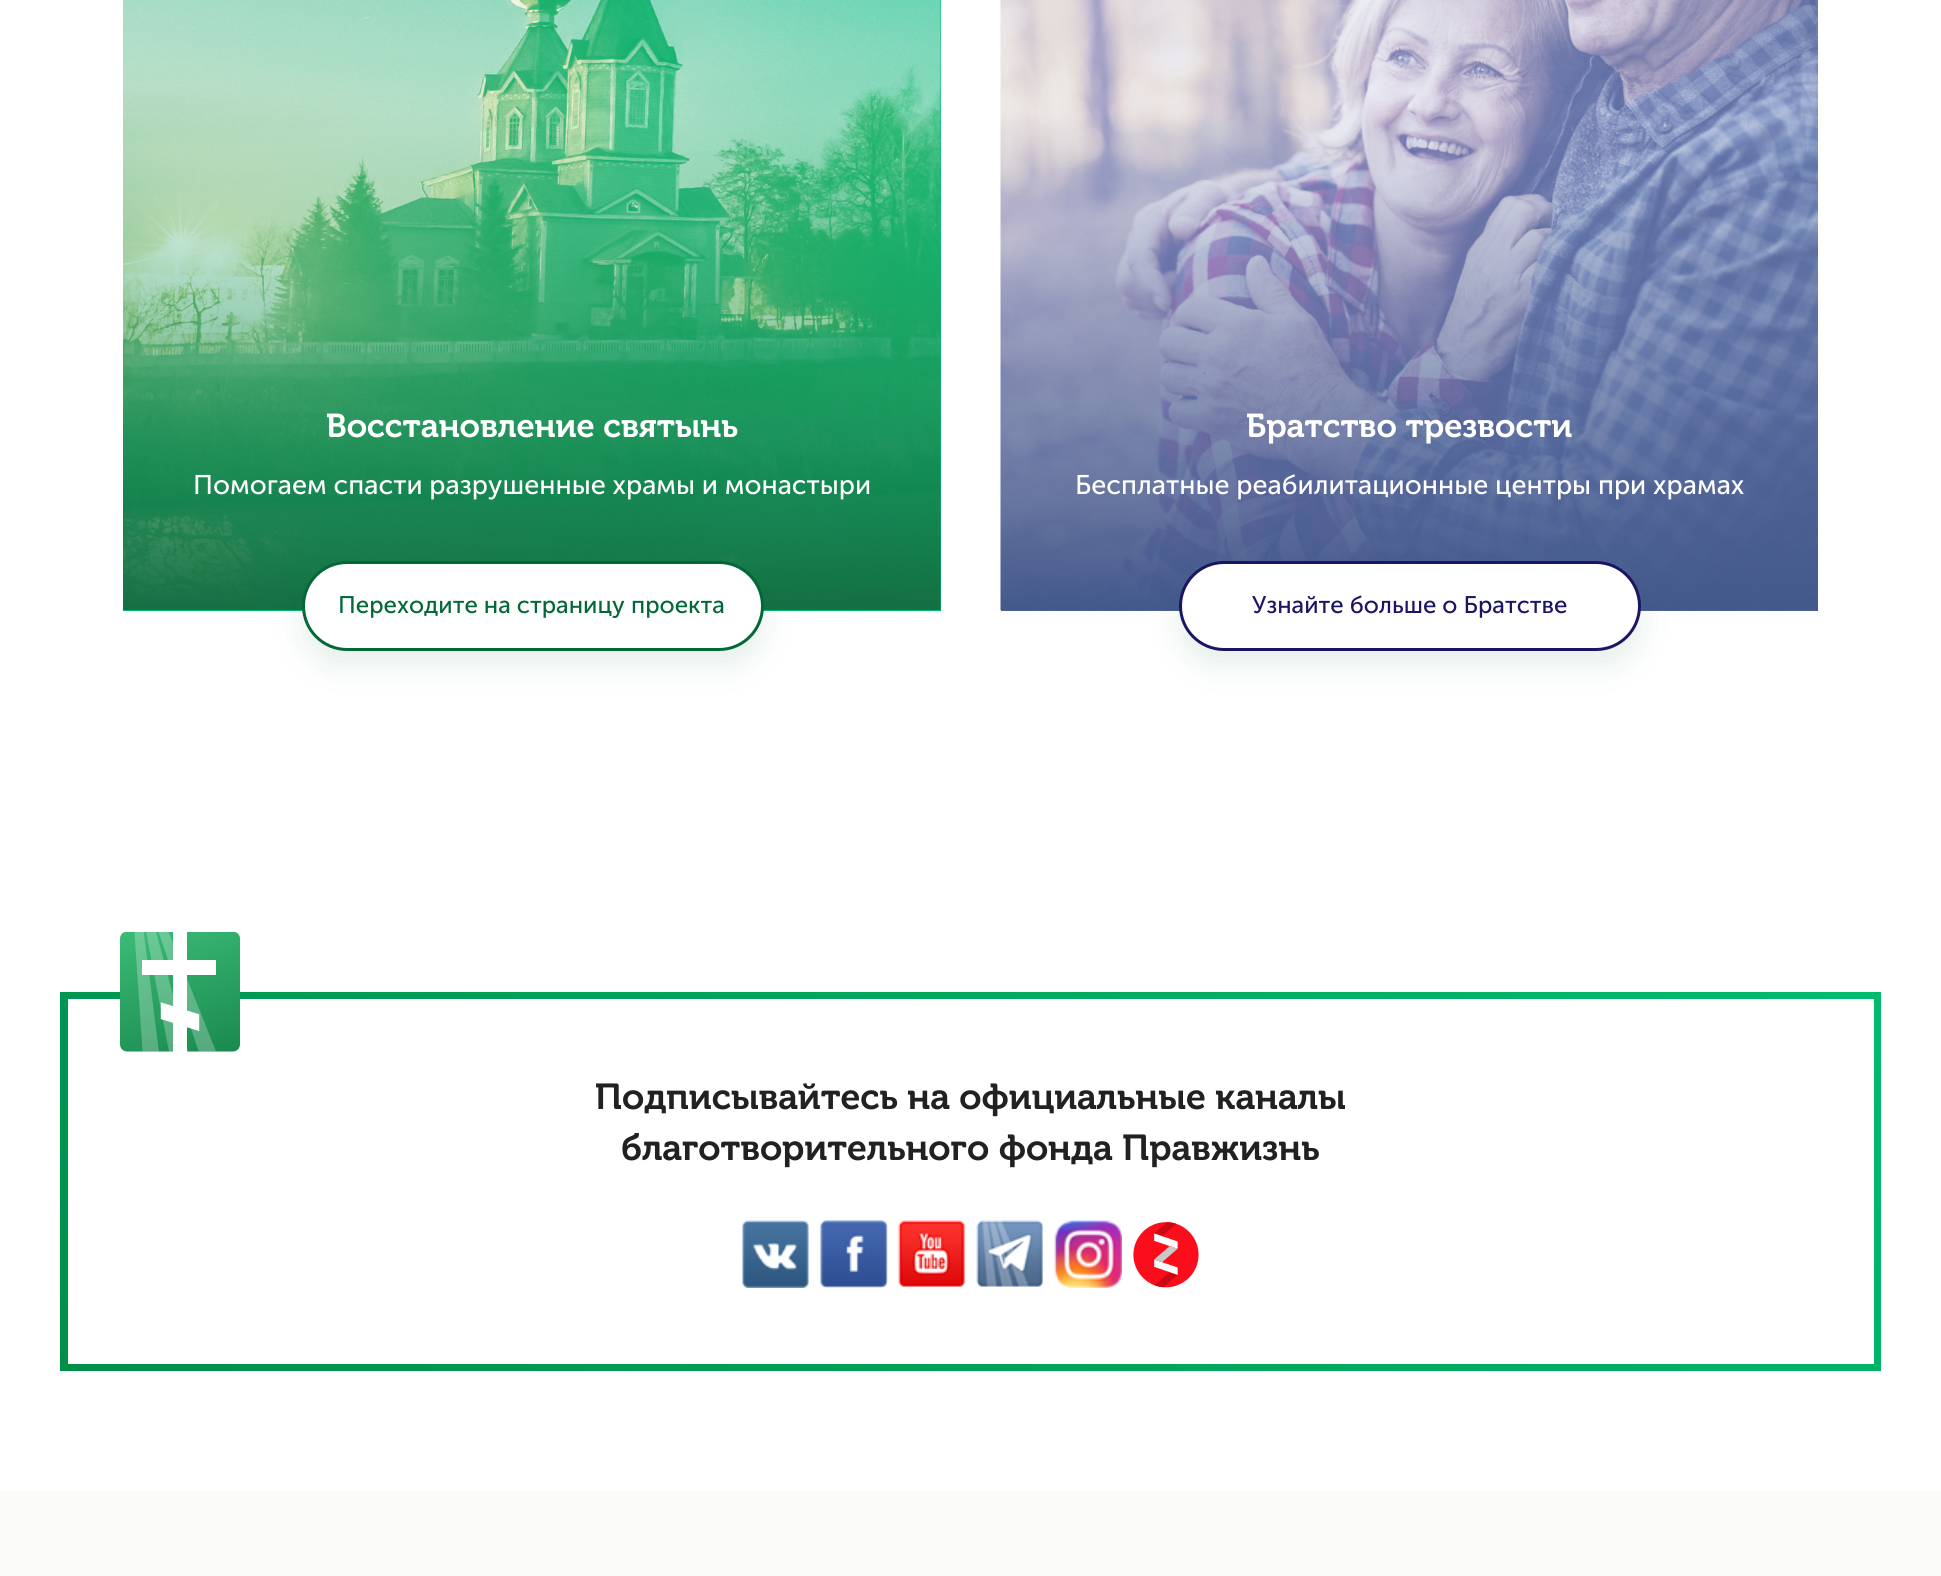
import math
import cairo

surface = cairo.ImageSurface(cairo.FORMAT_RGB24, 1941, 1576)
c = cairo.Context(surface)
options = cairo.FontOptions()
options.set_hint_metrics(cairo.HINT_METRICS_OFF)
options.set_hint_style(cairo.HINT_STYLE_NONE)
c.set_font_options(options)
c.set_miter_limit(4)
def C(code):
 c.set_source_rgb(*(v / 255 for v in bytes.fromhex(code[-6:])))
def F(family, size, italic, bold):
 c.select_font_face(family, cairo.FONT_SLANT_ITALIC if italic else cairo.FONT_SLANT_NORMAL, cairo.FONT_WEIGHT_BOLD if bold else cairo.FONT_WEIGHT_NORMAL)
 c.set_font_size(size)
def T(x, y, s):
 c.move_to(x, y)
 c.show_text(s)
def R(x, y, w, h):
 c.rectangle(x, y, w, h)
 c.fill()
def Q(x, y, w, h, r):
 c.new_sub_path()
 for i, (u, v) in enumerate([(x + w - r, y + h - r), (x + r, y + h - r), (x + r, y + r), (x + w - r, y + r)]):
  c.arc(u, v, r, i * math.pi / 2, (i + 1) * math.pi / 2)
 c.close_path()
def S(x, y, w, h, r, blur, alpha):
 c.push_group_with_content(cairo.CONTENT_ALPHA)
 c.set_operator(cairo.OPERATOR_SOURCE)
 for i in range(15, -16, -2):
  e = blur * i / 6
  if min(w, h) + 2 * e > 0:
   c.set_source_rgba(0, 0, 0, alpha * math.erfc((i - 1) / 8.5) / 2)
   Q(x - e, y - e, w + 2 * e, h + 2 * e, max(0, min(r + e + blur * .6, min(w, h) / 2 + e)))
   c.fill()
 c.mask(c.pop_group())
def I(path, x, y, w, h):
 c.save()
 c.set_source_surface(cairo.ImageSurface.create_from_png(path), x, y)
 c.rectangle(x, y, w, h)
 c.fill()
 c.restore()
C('ffffff')
c.paint()
C('00bb6e')
R(123,0,818,611)
I('1.png',123,0,818,610)
F('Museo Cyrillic',33,0,1)
C('ffffff')
T(326,437,'Восстановление святынь')
F('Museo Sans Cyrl',27,0,0)
T(193,494,'Помогаем спасти разрушенные храмы и монастыри')
C('026837')
S(302,576,462,90,45,15,.1)
C('026837')
Q(302,561,462,90,45)
c.fill()
C('ffffff')
Q(305,564,456,84,42)
c.fill()
F('Museo Sans Cyrl',24,0,0)
C('026837')
T(338,613,'Переходите на страницу проекта')
C('4c6195')
R(1001,610,817,1)
I('2.png',1000,0,818,610)
F('Museo Cyrillic',33,0,1)
C('ffffff')
T(1246,437,'Братство трезвости')
F('Museo Sans Cyrl',27,0,0)
T(1075,494,'Бесплатные реабилитационные центры при храмах')
C('026837')
S(1179,576,462,90,45,15,.1)
C('1b1564')
Q(1179,561,462,90,45)
c.fill()
C('ffffff')
Q(1182,564,456,84,42)
c.fill()
F('Museo Sans Cyrl',24,0,0)
C('1b1564')
T(1252,613,'Узнайте больше о Братстве')
gradient = cairo.LinearGradient(420,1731,1521,631)
gradient.add_color_stop_rgba(0,0,0.561,0.286,1)
gradient.add_color_stop_rgba(1,0,0.733,0.431,1)
c.set_source(gradient)
R(60,992,1821,379)
C('ffffff')
R(68,999,1806,365)
I('3.png',120,932,120,120)
F('Museo Cyrillic',36,0,1)
C('212121')
T(595,1109,'Подписывайтесь на официальные каналы')
T(621,1160,'благотворительного фонда Правжизнь')
I('4.png',742,1220,67,68)
I('5.png',820,1220,68,68)
I('6.png',898,1220,67,67)
I('7.png',976,1220,67,67)
I('8.png',1054,1220,68,68)
I('9.png',1133,1222,66,66)
C('fbfbf9')
R(0,1491,1941,85)
surface.write_to_png('o.png')
